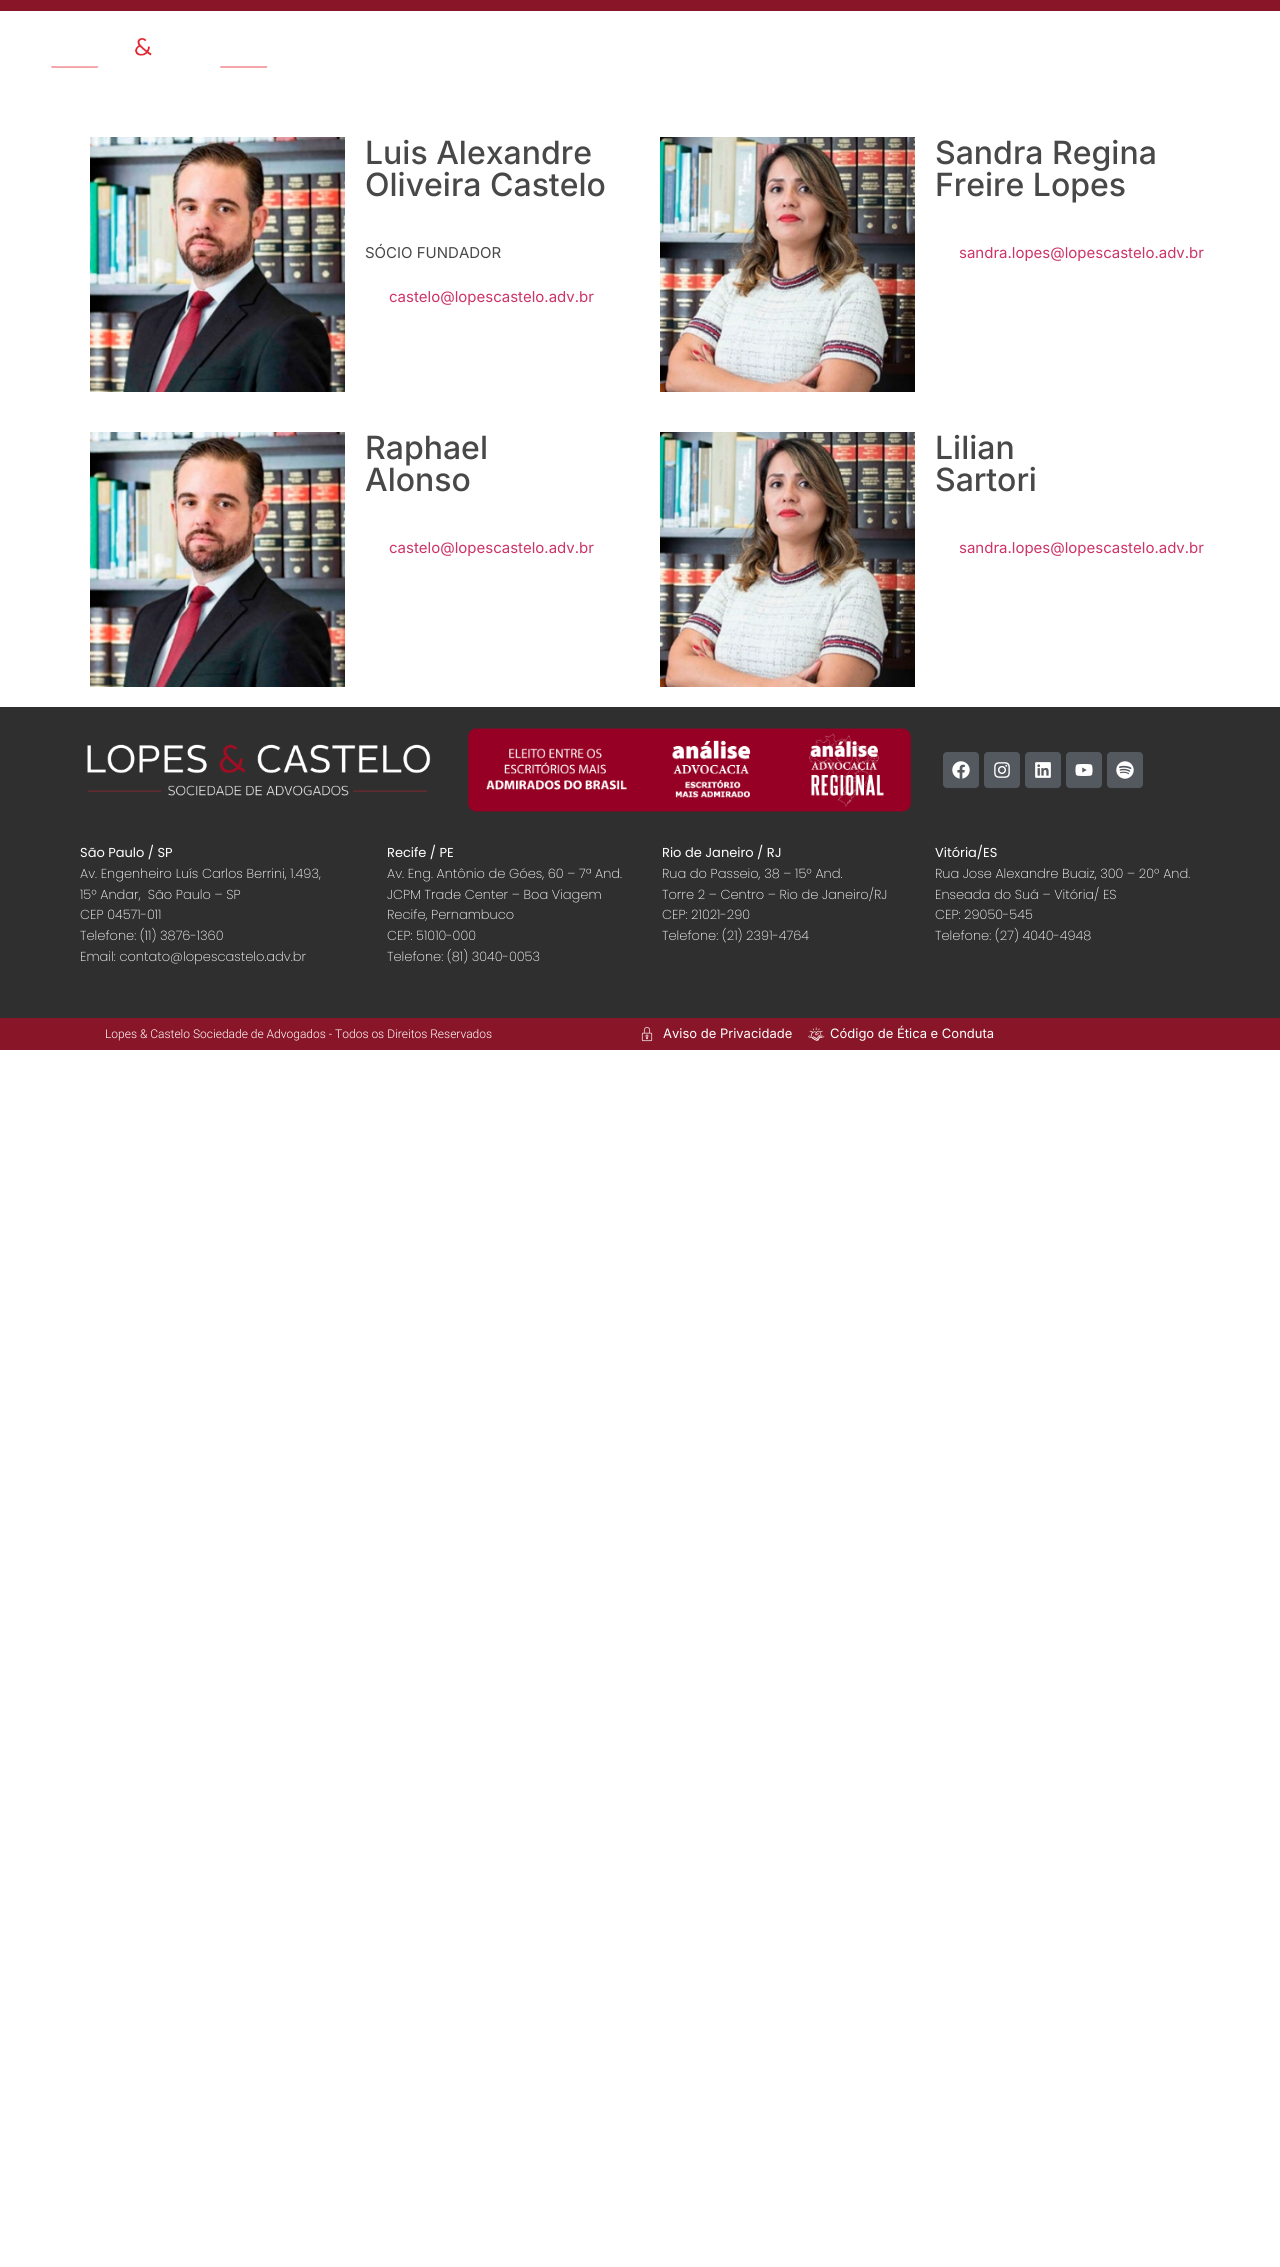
import math
import cairo

surface = cairo.ImageSurface(cairo.FORMAT_RGB24, 1280, 2267)
c = cairo.Context(surface)
options = cairo.FontOptions()
options.set_hint_metrics(cairo.HINT_METRICS_OFF)
options.set_hint_style(cairo.HINT_STYLE_NONE)
c.set_font_options(options)
c.set_miter_limit(4)
def C(code):
 c.set_source_rgb(*(v / 255 for v in bytes.fromhex(code[-6:])))
def F(family, size, italic, bold):
 c.select_font_face(family, cairo.FONT_SLANT_ITALIC if italic else cairo.FONT_SLANT_NORMAL, cairo.FONT_WEIGHT_BOLD if bold else cairo.FONT_WEIGHT_NORMAL)
 c.set_font_size(size)
def T(x, y, s):
 c.move_to(x, y)
 c.show_text(s)
def R(x, y, w, h):
 c.rectangle(x, y, w, h)
 c.fill()
def Q(x, y, w, h, r):
 c.new_sub_path()
 for i, (u, v) in enumerate([(x + w - r, y + h - r), (x + r, y + h - r), (x + r, y + r), (x + w - r, y + r)]):
  c.arc(u, v, r, i * math.pi / 2, (i + 1) * math.pi / 2)
 c.close_path()
def I(path, x, y, w, h):
 c.save()
 c.set_source_surface(cairo.ImageSurface.create_from_png(path), x, y)
 c.rectangle(x, y, w, h)
 c.fill()
 c.restore()
C('ffffff')
c.paint()
C('891628')
R(0,0,1280,11)
I('1.png',51,38,217,30)
I('2.png',90,137,255,255)
F('Inter Medium',32,0,0)
C('484848')
T(365,164,'Luis Alexandre')
T(365,196,'Oliveira Castelo')
F('Inter',15,0,0)
T(365,258,'SÓCIO FUNDADOR')
C('cc3366')
T(389,302,'castelo@lopescastelo.adv.br')
I('3.png',660,137,255,255)
F('Inter Medium',32,0,0)
C('484848')
T(935,164,'Sandra Regina')
T(935,196,'Freire Lopes')
F('Inter',15,0,0)
C('cc3366')
T(959,258,'sandra.lopes@lopescastelo.adv.br')
I('4.png',90,432,255,255)
F('Inter Medium',32,0,0)
C('484848')
T(365,459,'Raphael')
T(365,491,'Alonso')
F('Inter',15,0,0)
C('cc3366')
T(389,553,'castelo@lopescastelo.adv.br')
I('5.png',660,432,255,255)
F('Inter Medium',32,0,0)
C('484848')
T(935,459,'Lilian')
T(935,491,'Sartori')
F('Inter',15,0,0)
C('cc3366')
T(959,553,'sandra.lopes@lopescastelo.adv.br')
C('2f2f2f')
R(0,707,1280,311)
I('6.png',87,744,344,52)
I('7.png',467,728,445,84)
C('54595f')
Q(943,752,36,36,4)
c.fill()
I('8.png',952,761,18,18)
Q(984,752,36,36,4)
c.fill()
I('9.png',994,762,16,16)
Q(1025,752,36,36,4)
c.fill()
I('10.png',1035,762,16,16)
Q(1066,752,36,36,4)
c.fill()
I('11.png',1075,764,18,12)
Q(1107,752,36,36,4)
c.fill()
I('12.png',1116,761,18,18)
F('Poppins',13,0,0)
C('ffffff')
T(80,857,'São Paulo / SP')
F('Poppins ExtraLight',13,0,0)
T(80,878,'Av. Engenheiro Luís Carlos Berrini, 1.493,')
T(80,899,'15º Andar,  São Paulo – SP')
T(80,919,'CEP 04571-011')
T(80,940,'Telefone: (11) 3876-1360')
T(80,961,'Email: contato@lopescastelo.adv.br')
F('Poppins',13,0,0)
T(387,857,'Recife / PE')
F('Poppins ExtraLight',13,0,0)
T(387,878,'Av. Eng. Antônio de Góes, 60 – 7ª And.')
T(387,899,'JCPM Trade Center – Boa Viagem')
T(387,919,'Recife, Pernambuco')
T(387,940,'CEP: 51010-000')
T(387,961,'Telefone: (81) 3040-0053')
F('Poppins',13,0,0)
T(662,857,'Rio de Janeiro / RJ')
F('Poppins ExtraLight',13,0,0)
T(662,878,'Rua do Passeio, 38 – 15º And.')
T(662,899,'Torre 2 – Centro – Rio de Janeiro/RJ')
T(662,919,'CEP: 21021-290')
T(662,940,'Telefone: (21) 2391-4764')
F('Poppins',13,0,0)
T(935,857,'Vitória/ES')
F('Poppins ExtraLight',13,0,0)
T(935,878,'Rua Jose Alexandre Buaiz, 300 – 20º And.')
T(935,899,'Enseada do Suá – Vitória/ ES')
T(935,919,'CEP: 29050-545')
T(935,940,'Telefone: (27) 4040-4948')
C('891628')
R(0,1018,1280,32)
F('Roboto Light',12,0,0)
C('ffffff')
T(105,1038,'Lopes & Castelo Sociedade de Advogados - Todos os Direitos Reservados')
I('13.png',641,1027,12,15)
F('Inter',13,0,0)
T(663,1038,'Aviso de Privacidade')
I('14.png',808,1026,17,15)
T(830,1038,'Código de Ética e Conduta')
surface.write_to_png('o.png')
